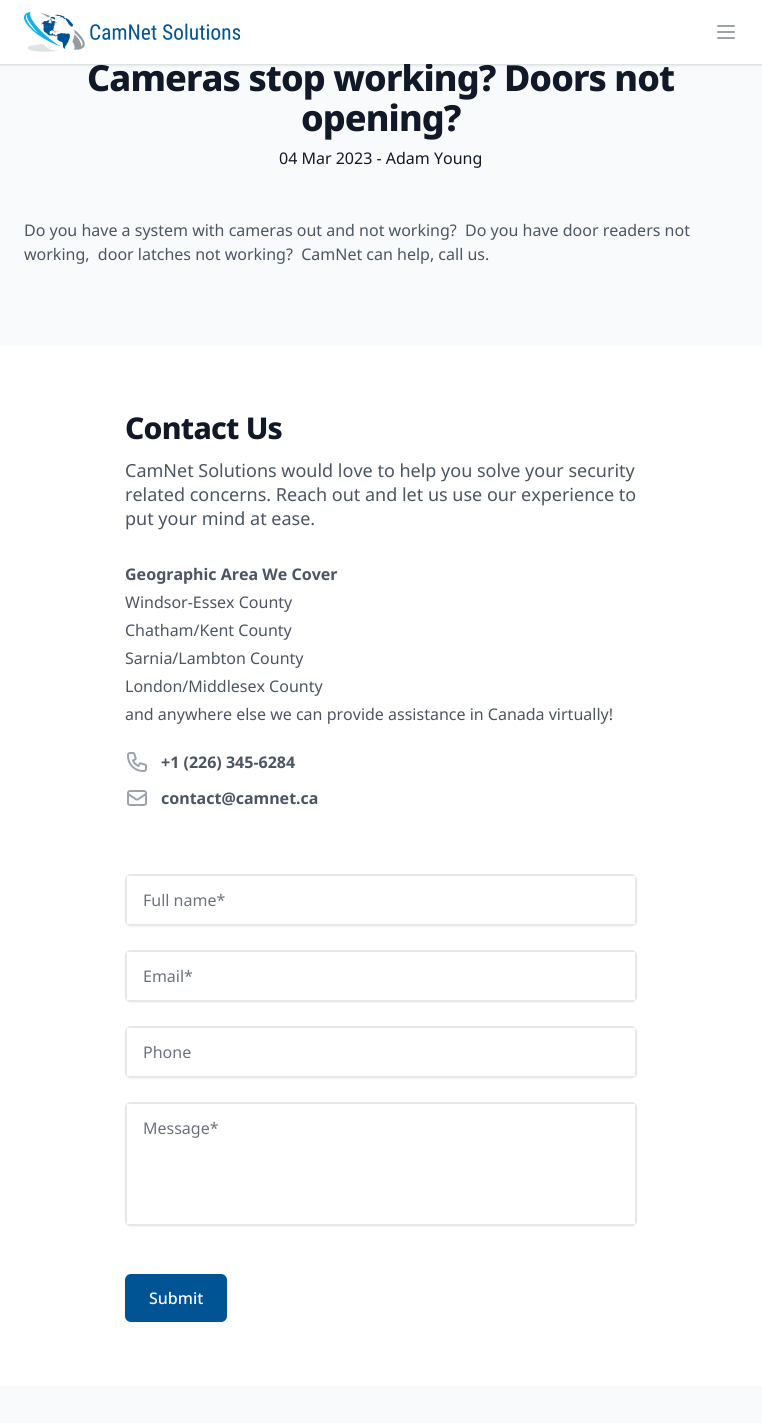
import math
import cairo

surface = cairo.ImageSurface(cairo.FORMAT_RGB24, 762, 1423)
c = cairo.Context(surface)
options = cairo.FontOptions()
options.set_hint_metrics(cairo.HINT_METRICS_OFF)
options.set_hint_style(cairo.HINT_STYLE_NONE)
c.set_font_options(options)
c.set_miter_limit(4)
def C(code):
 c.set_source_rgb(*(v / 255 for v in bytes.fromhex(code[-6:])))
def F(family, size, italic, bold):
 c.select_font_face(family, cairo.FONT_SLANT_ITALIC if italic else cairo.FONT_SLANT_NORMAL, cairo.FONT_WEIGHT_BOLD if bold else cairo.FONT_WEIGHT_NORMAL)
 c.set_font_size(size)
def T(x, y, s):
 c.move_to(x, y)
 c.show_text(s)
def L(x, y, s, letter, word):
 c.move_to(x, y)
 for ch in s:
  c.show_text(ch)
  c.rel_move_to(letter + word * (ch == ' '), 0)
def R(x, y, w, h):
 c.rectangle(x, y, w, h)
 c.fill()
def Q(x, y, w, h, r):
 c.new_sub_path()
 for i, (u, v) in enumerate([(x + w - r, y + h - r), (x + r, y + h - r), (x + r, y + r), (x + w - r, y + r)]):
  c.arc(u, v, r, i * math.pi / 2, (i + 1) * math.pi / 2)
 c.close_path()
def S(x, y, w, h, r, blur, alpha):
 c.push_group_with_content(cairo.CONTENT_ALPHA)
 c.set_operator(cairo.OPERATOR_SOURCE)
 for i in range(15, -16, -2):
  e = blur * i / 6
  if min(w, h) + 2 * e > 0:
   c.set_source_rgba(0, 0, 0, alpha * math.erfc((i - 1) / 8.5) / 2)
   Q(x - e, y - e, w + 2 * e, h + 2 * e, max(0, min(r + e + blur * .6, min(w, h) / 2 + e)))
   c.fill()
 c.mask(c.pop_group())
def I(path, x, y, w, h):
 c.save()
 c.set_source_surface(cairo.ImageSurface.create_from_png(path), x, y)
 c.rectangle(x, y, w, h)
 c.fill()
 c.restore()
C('ffffff')
c.paint()
C('f9fafb')
R(0,64,762,282)
C('000000')
S(0,1,762,64,0,1,.06)
S(0,1,762,64,0,1.5,.1)
F('Noto Sans ExtraBold',36,0,0)
C('111827')
L(87,91,'Cameras stop working? Doors not',-.9,0)
C('ffffff')
R(0,0,762,64)
I('1.png',24,12,216,40)
c.new_path()
c.move_to(718,26)
c.line_to(734,26)
c.move_to(718,32)
c.line_to(734,32)
c.move_to(718,38)
c.line_to(734,38)
C('9ca3af')
c.set_line_cap(cairo.LINE_CAP_ROUND)
c.set_line_join(cairo.LINE_JOIN_ROUND)
c.stroke()
C('111827')
L(301,131,'opening?',-.9,0)
F('Noto Sans',16,0,0)
T(279,164,'04 Mar 2023 - Adam Young')
C('4b5563')
T(24,236,'Do you have a system with cameras out and not working?  Do you have door readers not')
T(24,260,'working,  door latches not working?  CamNet can help, call us.')
F('Noto Sans ExtraBold',30,0,0)
C('111827')
L(125,439,'Contact Us',-.75,0)
F('Noto Sans',18,0,0)
C('4b5563')
T(125,477,'CamNet Solutions would love to help you solve your security')
T(125,501,'related concerns. Reach out and let us use our experience to')
T(125,525,'put your mind at ease.')
F('Noto Sans',16,0,1)
T(125,580,'Geographic Area We Cover')
F('Noto Sans',16,0,0)
T(125,608,'Windsor-Essex County')
T(125,636,'Chatham/Kent County')
T(125,664,'Sarnia/Lambton County')
T(125,692,'London/Middlesex County')
T(125,720,'and anywhere else we can provide assistance in Canada virtually!')
I('2.png',127,752,20,20)
F('Noto Sans',16,0,1)
T(161,768,'+1 (226) 345-6284')
I('3.png',127,790,20,16)
T(161,804,'contact@camnet.ca')
C('000000')
S(125,875,512,52,6,1,.05)
Q(126,875,510,50,5)
C('e5e7eb')
c.set_line_cap(cairo.LINE_CAP_BUTT)
c.set_line_join(cairo.LINE_JOIN_MITER)
c.stroke()
C('ffffff')
R(127,876,508,48)
F('Noto Sans',16,0,0)
C('6b7280')
T(143,906,'Full name*')
C('000000')
S(125,951,512,52,6,1,.05)
Q(126,951,510,50,5)
C('e5e7eb')
c.stroke()
C('ffffff')
R(127,952,508,48)
C('6b7280')
T(143,982,'Email*')
C('000000')
S(125,1027,512,52,6,1,.05)
Q(126,1027,510,50,5)
C('e5e7eb')
c.stroke()
C('ffffff')
R(127,1028,508,48)
C('6b7280')
T(143,1058,'Phone')
C('000000')
S(125,1103,512,124,6,1,.05)
Q(126,1103,510,122,5)
C('e5e7eb')
c.stroke()
C('ffffff')
R(127,1104,508,120)
C('6b7280')
T(143,1134,'Message*')
C('000000')
S(125,1275,102,48,6,1,.05)
C('005494')
Q(125,1274,102,48,6)
c.fill()
F('Noto Sans Medium',16,0,0)
C('ffffff')
T(149,1304,'Submit')
C('f9fafb')
R(0,1386,762,37)
surface.write_to_png('o.png')
